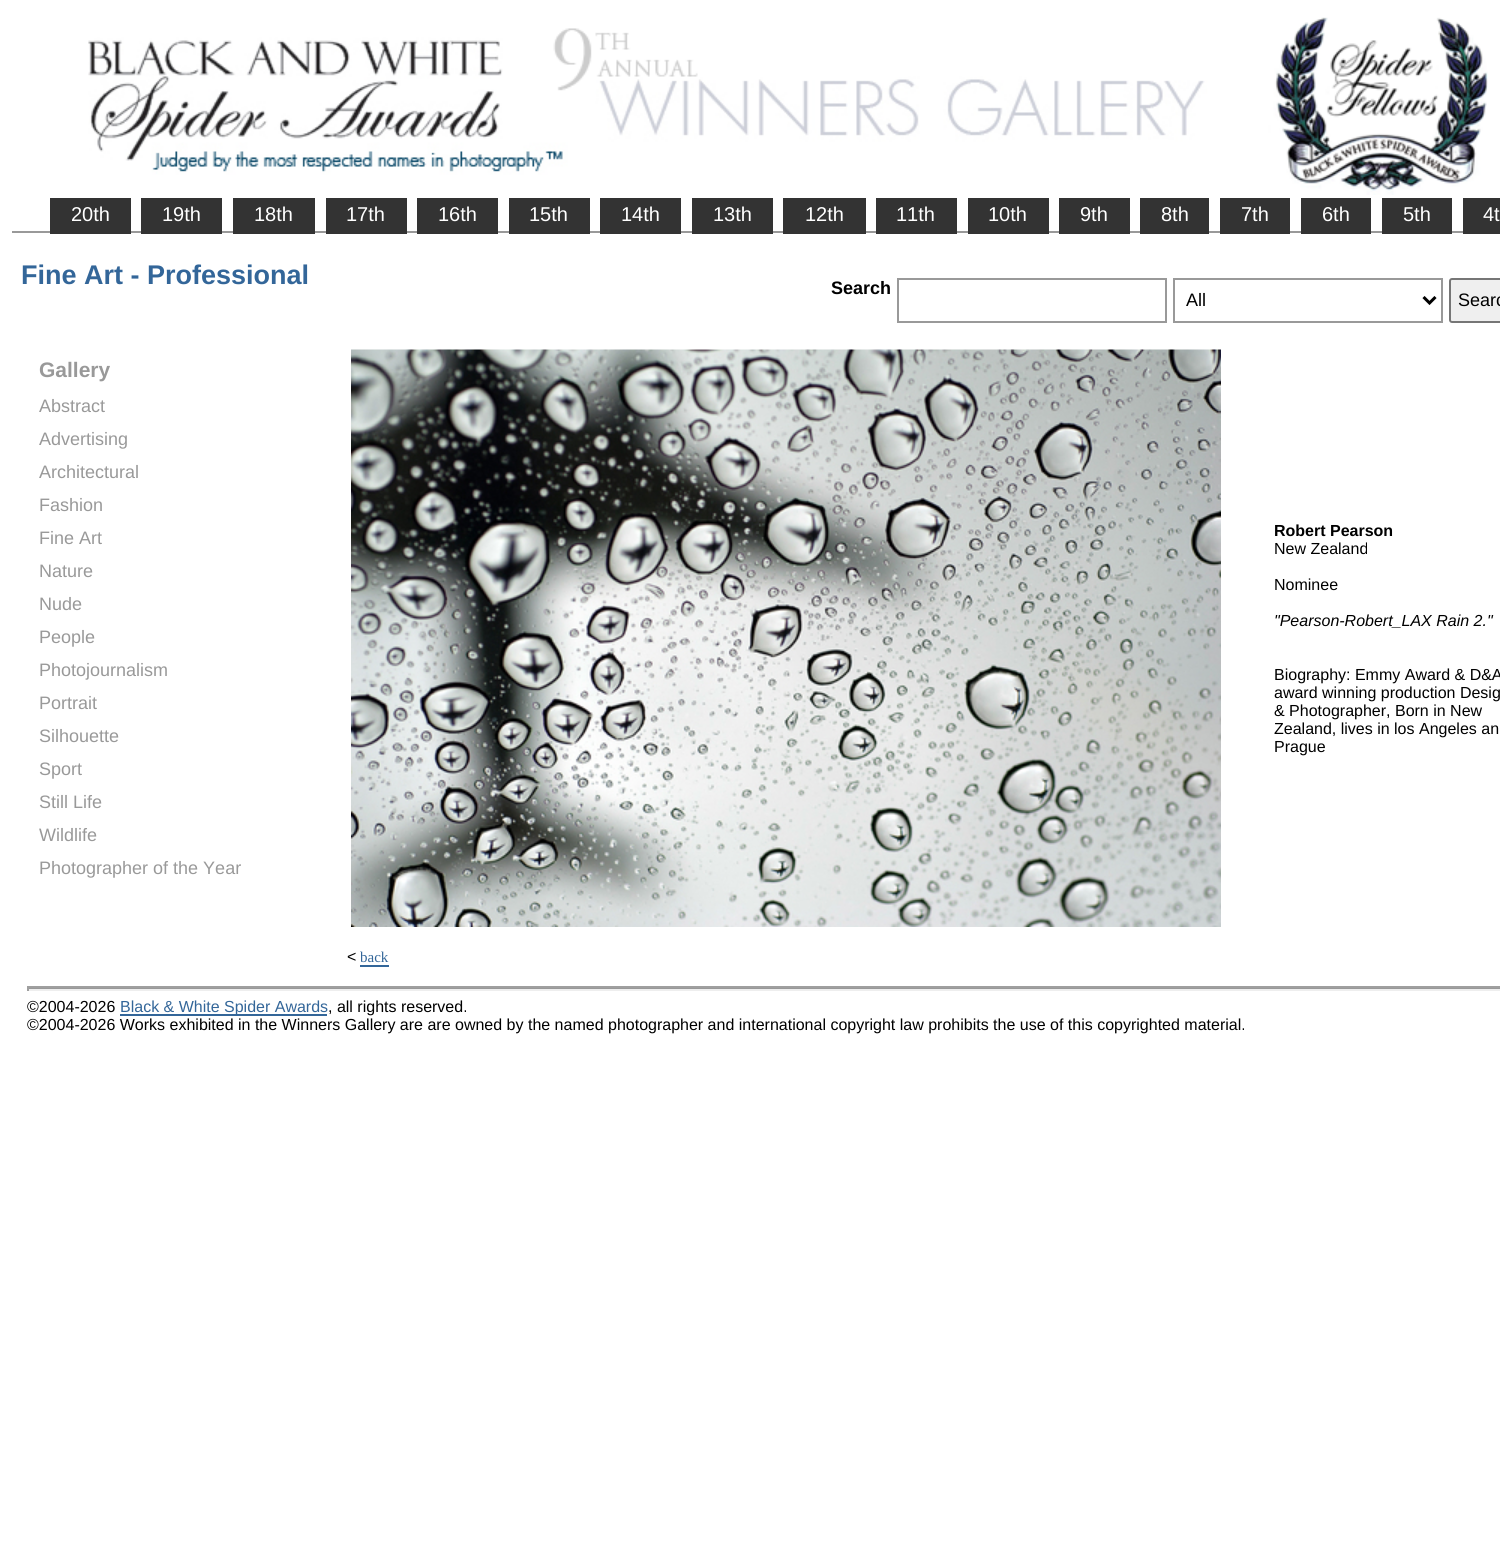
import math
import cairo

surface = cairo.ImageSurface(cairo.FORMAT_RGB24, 1500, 1563)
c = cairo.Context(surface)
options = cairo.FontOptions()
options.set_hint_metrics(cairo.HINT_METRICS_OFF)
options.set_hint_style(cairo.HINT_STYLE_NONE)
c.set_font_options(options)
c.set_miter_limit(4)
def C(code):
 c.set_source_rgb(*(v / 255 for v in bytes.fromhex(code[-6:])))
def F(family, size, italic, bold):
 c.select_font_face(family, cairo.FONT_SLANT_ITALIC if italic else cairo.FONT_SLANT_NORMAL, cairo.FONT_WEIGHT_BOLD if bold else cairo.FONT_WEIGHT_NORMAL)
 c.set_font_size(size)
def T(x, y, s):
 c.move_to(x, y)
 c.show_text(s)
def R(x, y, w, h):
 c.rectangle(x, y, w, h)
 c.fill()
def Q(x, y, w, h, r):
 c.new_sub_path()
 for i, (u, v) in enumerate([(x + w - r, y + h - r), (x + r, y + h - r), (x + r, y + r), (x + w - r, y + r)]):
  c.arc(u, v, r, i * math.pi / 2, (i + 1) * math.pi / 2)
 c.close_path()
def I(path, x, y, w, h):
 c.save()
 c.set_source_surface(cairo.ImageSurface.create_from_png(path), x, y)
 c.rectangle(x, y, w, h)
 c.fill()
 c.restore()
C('ffffff')
c.paint()
I('1.png',88,17,1400,178)
C('999999')
R(12,231,1451,2)
C('333333')
R(50,198,81,36)
F('Liberation Sans',20,0,0)
C('ffffff')
T(71,221,'20th')
C('333333')
R(141,198,81,36)
C('ffffff')
T(162,221,'19th')
C('333333')
R(233,198,82,36)
C('ffffff')
T(254,221,'18th')
C('333333')
R(326,198,81,36)
C('ffffff')
T(346,221,'17th')
C('333333')
R(417,198,81,36)
C('ffffff')
T(438,221,'16th')
C('333333')
R(509,198,81,36)
C('ffffff')
T(529,221,'15th')
C('333333')
R(600,198,81,36)
C('ffffff')
T(621,221,'14th')
C('333333')
R(692,198,81,36)
C('ffffff')
T(713,221,'13th')
C('333333')
R(783,198,83,36)
C('ffffff')
T(805,221,'12th')
C('333333')
R(876,198,81,36)
C('ffffff')
T(896,221,'11th')
C('333333')
R(968,198,81,36)
C('ffffff')
T(988,221,'10th')
C('333333')
R(1059,198,71,36)
C('ffffff')
T(1080,221,'9th')
C('333333')
R(1140,198,69,36)
C('ffffff')
T(1161,221,'8th')
C('333333')
R(1220,198,70,36)
C('ffffff')
T(1241,221,'7th')
C('333333')
R(1301,198,70,36)
C('ffffff')
T(1322,221,'6th')
C('333333')
R(1382,198,70,36)
C('ffffff')
T(1403,221,'5th')
C('333333')
R(1463,198,37,36)
C('ffffff')
T(1483,221,'4t')
F('Liberation Sans',27,0,1)
C('336699')
T(21,284,'Fine Art - Professional')
F('Liberation Sans',18,0,1)
C('000000')
T(831,294,'Search')
c.rectangle(898,279,268,43)
C('999999')
c.stroke()
c.rectangle(1174,279,268,43)
c.stroke()
c.new_path()
c.move_to(1423.5,297)
c.line_to(1429.5,303)
c.line_to(1435.5,297)
C('000000')
c.set_line_width(3)
c.stroke()
F('Liberation Sans',18,0,0)
T(1186,306,'All')
C('efefef')
Q(1450,279,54,43,2)
c.fill_preserve()
C('767676')
c.set_line_width(2)
c.stroke()
C('000000')
T(1458,306,'Searc')
F('Liberation Sans',21,0,1)
C('999999')
T(39,377,'Gallery')
F('Liberation Sans',18,0,0)
T(39,412,'Abstract')
T(39,445,'Advertising')
T(39,478,'Architectural')
T(39,511,'Fashion')
T(39,544,'Fine Art')
T(39,577,'Nature')
T(39,610,'Nude')
T(39,643,'People')
T(39,676,'Photojournalism')
T(39,709,'Portrait')
T(39,742,'Silhouette')
T(39,775,'Sport')
T(39,808,'Still Life')
T(39,841,'Wildlife')
T(39,874,'Photographer of the Year')
I('2.png',351,349,870,578)
F('Liberation Sans',16,0,1)
C('000000')
T(1274,536,'Robert Pearson')
F('Liberation Sans',16,0,0)
T(1274,554,'New Zealand')
T(1274,590,'Nominee')
F('Liberation Sans',16,1,0)
T(1274,626,'"Pearson-Robert_LAX Rain 2."')
F('Liberation Sans',16,0,0)
T(1274,680,'Biography: Emmy Award & D&A')
T(1274,698,'award winning production Desig')
T(1274,716,'& Photographer, Born in New')
T(1274,734,'Zealand, lives in los Angeles an')
T(1274,752,'Prague')
T(347,962,'<')
F('Liberation Serif',15,0,0)
C('336699')
T(360,962,'back')
R(360,965,29,2)
C('999999')
R(27,988,1473,1)
C('9f9f9f')
R(27,986,1473,2)
C('eeeeee')
R(27,989,1473,2)
C('9f9f9f')
R(27,986,2,5)
F('Liberation Sans',16,0,0)
C('000000')
T(27,1012,'©2004-2026')
C('336699')
R(120,1014,207,2)
T(120,1012,'Black & White Spider Awards')
C('000000')
T(328,1012,', all rights reserved.')
T(27,1030,'©2004-2026 Works exhibited in the Winners Gallery are are owned by the named photographer and international copyright law prohibits the use of this copyrighted material.')
surface.write_to_png('o.png')
